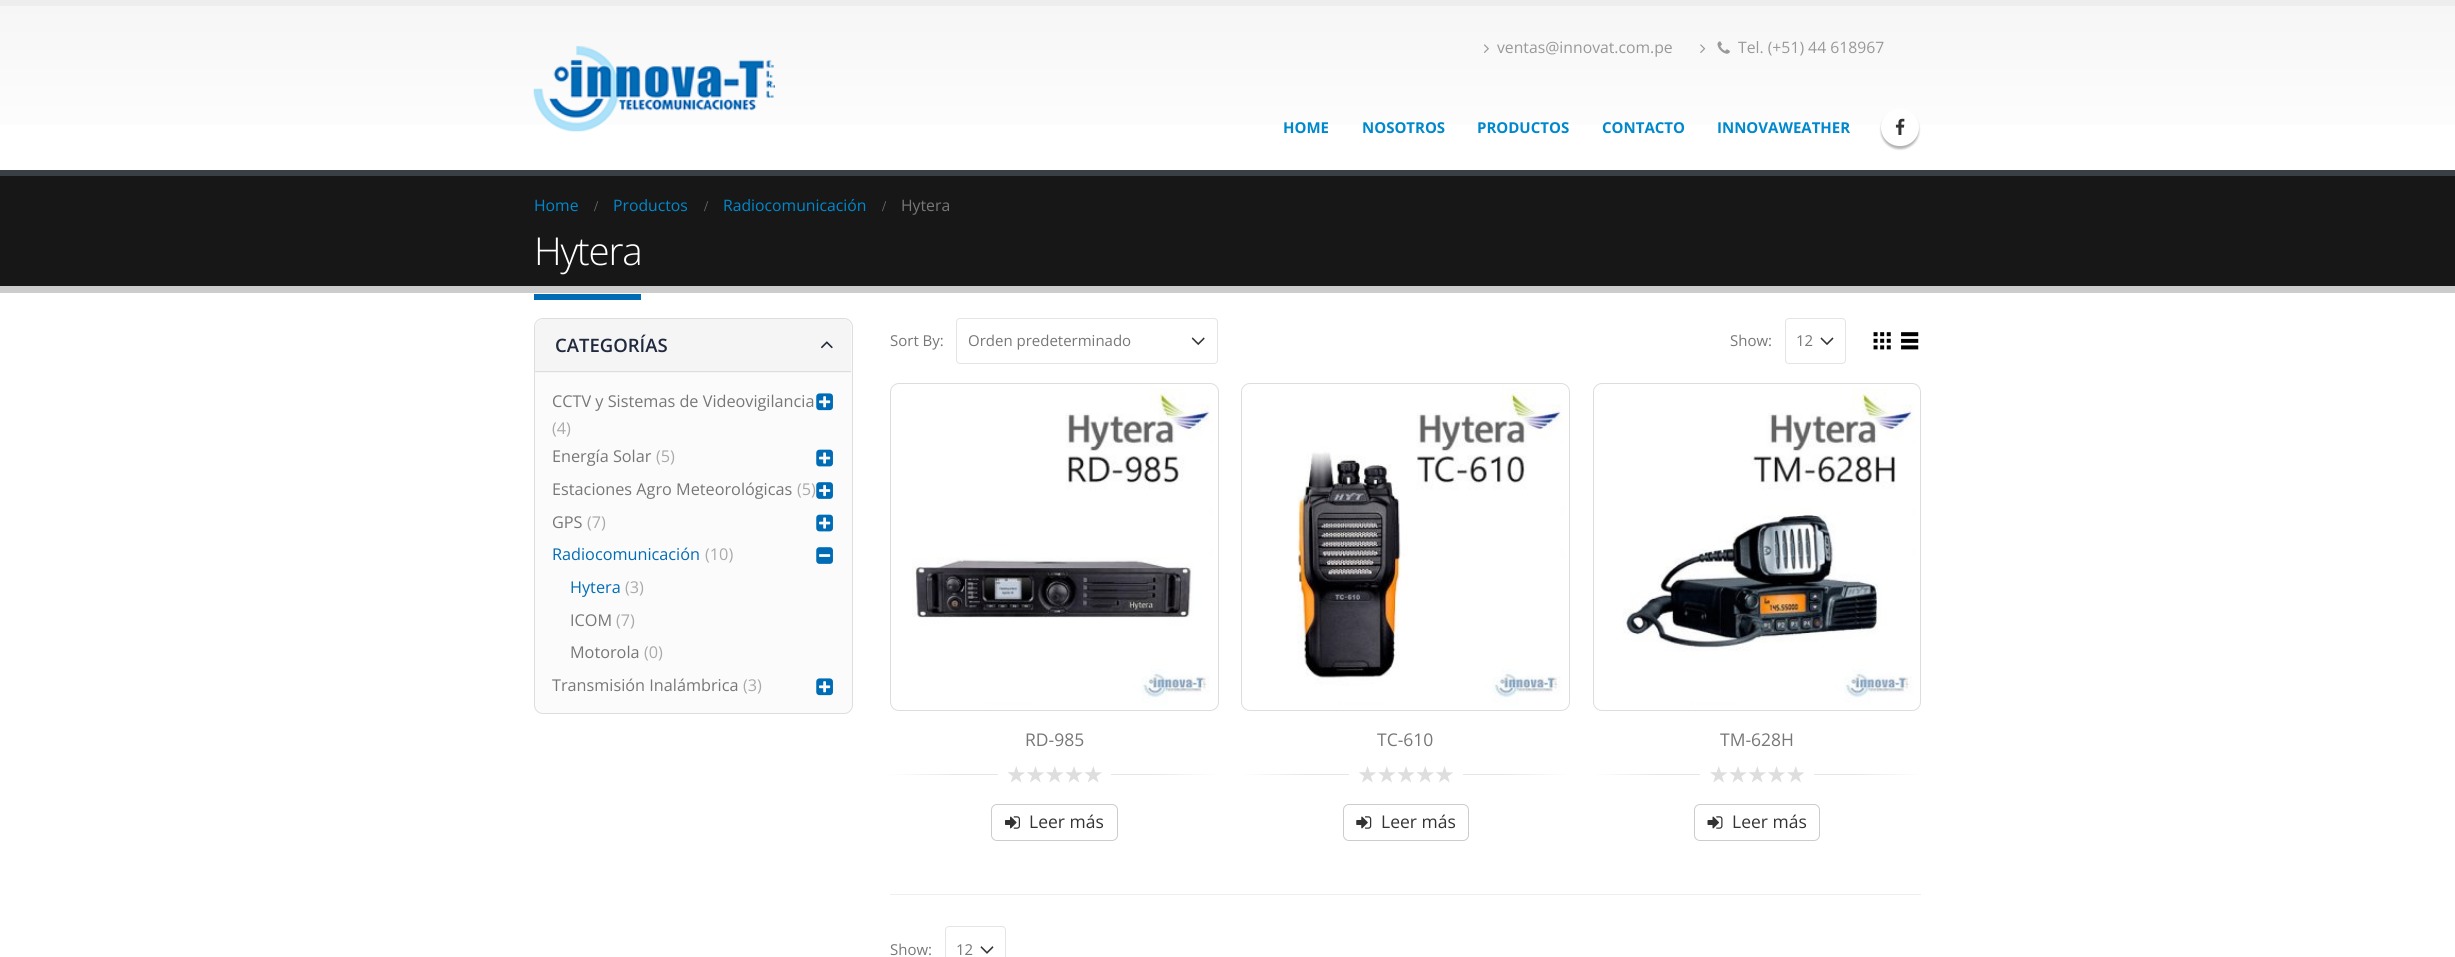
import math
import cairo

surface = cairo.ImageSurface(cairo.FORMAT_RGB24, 2455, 957)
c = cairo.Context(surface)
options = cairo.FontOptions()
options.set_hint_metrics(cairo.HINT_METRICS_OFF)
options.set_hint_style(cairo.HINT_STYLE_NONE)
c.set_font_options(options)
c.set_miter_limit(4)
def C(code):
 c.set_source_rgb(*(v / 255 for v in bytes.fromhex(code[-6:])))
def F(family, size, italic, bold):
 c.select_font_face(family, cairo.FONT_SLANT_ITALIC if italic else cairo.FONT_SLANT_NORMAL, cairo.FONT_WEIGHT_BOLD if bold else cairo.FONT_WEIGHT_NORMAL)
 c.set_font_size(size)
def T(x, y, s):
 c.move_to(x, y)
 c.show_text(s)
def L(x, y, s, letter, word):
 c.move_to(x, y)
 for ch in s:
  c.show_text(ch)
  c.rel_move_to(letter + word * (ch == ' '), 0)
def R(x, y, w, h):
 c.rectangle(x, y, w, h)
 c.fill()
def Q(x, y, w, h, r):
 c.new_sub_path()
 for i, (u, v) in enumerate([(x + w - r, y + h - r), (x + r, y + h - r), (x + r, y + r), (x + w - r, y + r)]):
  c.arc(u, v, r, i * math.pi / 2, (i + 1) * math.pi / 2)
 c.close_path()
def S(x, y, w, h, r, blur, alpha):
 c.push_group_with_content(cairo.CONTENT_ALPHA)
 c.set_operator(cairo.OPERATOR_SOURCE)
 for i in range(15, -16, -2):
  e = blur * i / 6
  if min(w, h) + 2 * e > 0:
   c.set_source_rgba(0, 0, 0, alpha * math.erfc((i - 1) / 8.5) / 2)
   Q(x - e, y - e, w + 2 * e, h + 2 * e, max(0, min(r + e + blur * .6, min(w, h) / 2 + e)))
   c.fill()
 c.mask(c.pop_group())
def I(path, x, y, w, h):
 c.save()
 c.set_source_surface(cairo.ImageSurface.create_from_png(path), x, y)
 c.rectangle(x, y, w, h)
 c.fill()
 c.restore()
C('ffffff')
c.paint()
C('ededed')
R(0,0,2455,6)
gradient = cairo.LinearGradient(1228,6.2,1228,170)
gradient.add_color_stop_rgba(0,0.965,0.965,0.965,1)
gradient.add_color_stop_rgba(1,1,1,1,1)
c.set_source(gradient)
R(0,6,2455,119)
I('1.png',533,46,242,86)
I('2.png',1484,44,5,9)
F('Open Sans',15.75,0,0)
C('999999')
T(1497,53,'ventas@innovat.com.pe')
I('3.png',1700,44,6,9)
I('4.png',1717,41,13,13)
T(1738,53,'Tel. (+51) 44 618967')
F('Open Sans',15,0,1)
C('0088cc')
T(1283,133,'HOME')
T(1362,133,'NOSOTROS')
T(1477,133,'PRODUCTOS')
T(1602,133,'CONTACTO')
T(1717,133,'INNOVAWEATHER')
C('000000')
S(1881,111,38,38,19,1,.3)
C('ffffff')
Q(1881,109,38,37,18.5)
c.fill()
I('5.png',1895,118,10,17)
C('171717')
R(0,176,2455,110)
C('384045')
R(0,170,2455,6)
C('cccccc')
R(0,286,2455,7)
F('Open Sans',15.75,0,0)
C('0088cc')
T(534,211,'Home')
F('Liberation Serif',15,0,0)
C('777777')
T(594,211,'/')
F('Open Sans',15.75,0,0)
C('0088cc')
T(613,211,'Productos')
F('Liberation Serif',15,0,0)
C('777777')
T(704,211,'/')
F('Open Sans',15.75,0,0)
C('0088cc')
T(723,211,'Radiocomunicación')
F('Liberation Serif',15,0,0)
C('777777')
T(882,211,'/')
F('Open Sans',15.75,0,0)
T(901,211,'Hytera')
C('006cb5')
R(534,294,107,6)
F('Open Sans Light',38.5,0,0)
C('ffffff')
L(534,265,'Hytera',-1.25,0)
C('fbfbfb')
Q(534.5,318.5,318,395,8.5)
c.fill_preserve()
C('dddddd')
c.set_line_width(1)
c.stroke()
C('f5f5f5')
c.new_path()
c.move_to(543,319)
c.line_to(843,319)
c.curve_to(847.5,319,851,322.5,851,327)
c.line_to(851,373)
c.line_to(535,373)
c.line_to(535,327)
c.curve_to(535,322.5,538.5,319,543,319)
c.close_path()
c.fill()
C('dddddd')
R(535,371,316,1)
F('Open Sans SemiBold',18.5,0,0)
C('21293c')
T(555,352,'CATEGORÍAS')
I('6.png',821,341,12,8)
F('Open Sans',16.25,0,0)
C('777777')
T(552,407,'CCTV y Sistemas de Videovigilancia')
I('7.png',816,393,17,18)
C('aaaaaa')
T(552,434,'(4)')
C('777777')
T(552,462,'Energía Solar')
C('aaaaaa')
T(656,462,'(5)')
I('8.png',816,449,17,18)
C('777777')
T(552,495,'Estaciones Agro Meteorológicas')
C('aaaaaa')
T(797,495,'(5)')
I('9.png',816,482,17,17)
C('777777')
T(552,528,'GPS')
C('aaaaaa')
T(587,528,'(7)')
I('8.png',816,514,17,18)
C('006cb5')
T(552,560,'Radiocomunicación')
C('aaaaaa')
T(705,560,'(10)')
I('10.png',816,547,17,17)
C('006cb5')
T(570,593,'Hytera')
C('aaaaaa')
T(625,593,'(3)')
C('777777')
T(570,626,'ICOM')
C('aaaaaa')
T(616,626,'(7)')
C('777777')
T(570,658,'Motorola')
C('aaaaaa')
T(644,658,'(0)')
C('777777')
T(552,691,'Transmisión Inalámbrica')
C('aaaaaa')
T(743,691,'(3)')
I('7.png',816,678,17,18)
F('Open Sans',15,0,0)
C('777777')
T(890,346,'Sort By:')
I('11.png',1191,337,14,9)
Q(956.5,318.5,261,45,3.5)
C('e4e4e4')
c.stroke()
C('777777')
T(968,346,'Orden predeterminado')
T(1730,346,'Show:')
I('12.png',1820,337,14,8)
Q(1785.5,318.5,60,45,3.5)
C('e4e4e4')
c.stroke()
C('777777')
T(1796,346,'12')
I('13.png',1873,332,18,18)
I('14.png',1901,332,18,18)
Q(890.5,383.5,328,327,8.5)
C('dddddd')
c.stroke()
I('15.png',912,388,301,318)
F('Open Sans',17.5,0,0)
C('777777')
T(1025,746,'RD-985')
gradient = cairo.LinearGradient(998,774,890,774)
gradient.add_color_stop_rgba(0,0.902,0.902,0.902,1)
gradient.add_color_stop_rgba(.4,0.902,0.902,0.902,1)
gradient.add_color_stop_rgba(1,1,1,1,1)
c.set_source(gradient)
R(890,774,108,1)
I('16.png',1008,766,94,17)
gradient = cairo.LinearGradient(1111,774,1219,774)
gradient.add_color_stop_rgba(0,0.902,0.902,0.902,1)
gradient.add_color_stop_rgba(.4,0.902,0.902,0.902,1)
gradient.add_color_stop_rgba(1,1,1,1,1)
c.set_source(gradient)
R(1111,774,108,1)
Q(991.5,804.5,126,36,5.5)
C('cccccc')
c.stroke()
I('17.png',1005,816,15,13)
C('333333')
T(1029,828,'Leer más')
Q(1241.5,383.5,328,327,8.5)
C('dddddd')
c.stroke()
I('18.png',1297,388,268,318)
C('777777')
T(1377,746,'TC-610')
gradient = cairo.LinearGradient(1349,774,1241,774)
gradient.add_color_stop_rgba(0,0.902,0.902,0.902,1)
gradient.add_color_stop_rgba(.4,0.902,0.902,0.902,1)
gradient.add_color_stop_rgba(1,1,1,1,1)
c.set_source(gradient)
R(1241,774,108,1)
I('19.png',1359,766,94,17)
gradient = cairo.LinearGradient(1463,774,1570,774)
gradient.add_color_stop_rgba(0,0.902,0.902,0.902,1)
gradient.add_color_stop_rgba(.4,0.902,0.902,0.902,1)
gradient.add_color_stop_rgba(1,1,1,1,1)
c.set_source(gradient)
R(1463,774,107,1)
Q(1343.5,804.5,125,36,5.5)
C('cccccc')
c.stroke()
I('20.png',1356,816,16,13)
C('333333')
T(1381,828,'Leer más')
Q(1593.5,383.5,327,327,8.5)
C('dddddd')
c.stroke()
I('21.png',1623,388,293,318)
C('777777')
T(1720,746,'TM-628H')
gradient = cairo.LinearGradient(1700,774,1593,774)
gradient.add_color_stop_rgba(0,0.902,0.902,0.902,1)
gradient.add_color_stop_rgba(.4,0.902,0.902,0.902,1)
gradient.add_color_stop_rgba(1,1,1,1,1)
c.set_source(gradient)
R(1593,774,107,1)
I('22.png',1710,766,94,17)
gradient = cairo.LinearGradient(1814,774,1921,774)
gradient.add_color_stop_rgba(0,0.902,0.902,0.902,1)
gradient.add_color_stop_rgba(.4,0.902,0.902,0.902,1)
gradient.add_color_stop_rgba(1,1,1,1,1)
c.set_source(gradient)
R(1814,774,107,1)
Q(1694.5,804.5,125,36,5.5)
C('cccccc')
c.stroke()
I('23.png',1707,816,16,13)
C('333333')
T(1732,828,'Leer más')
C('efefef')
R(890,894,1031,1)
F('Open Sans',15,0,0)
C('777777')
T(890,955,'Show:')
I('24.png',980,946,14,8)
Q(945.5,926.5,60,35,3.5)
C('e4e4e4')
c.stroke()
C('777777')
T(956,955,'12')
surface.write_to_png('o.png')
